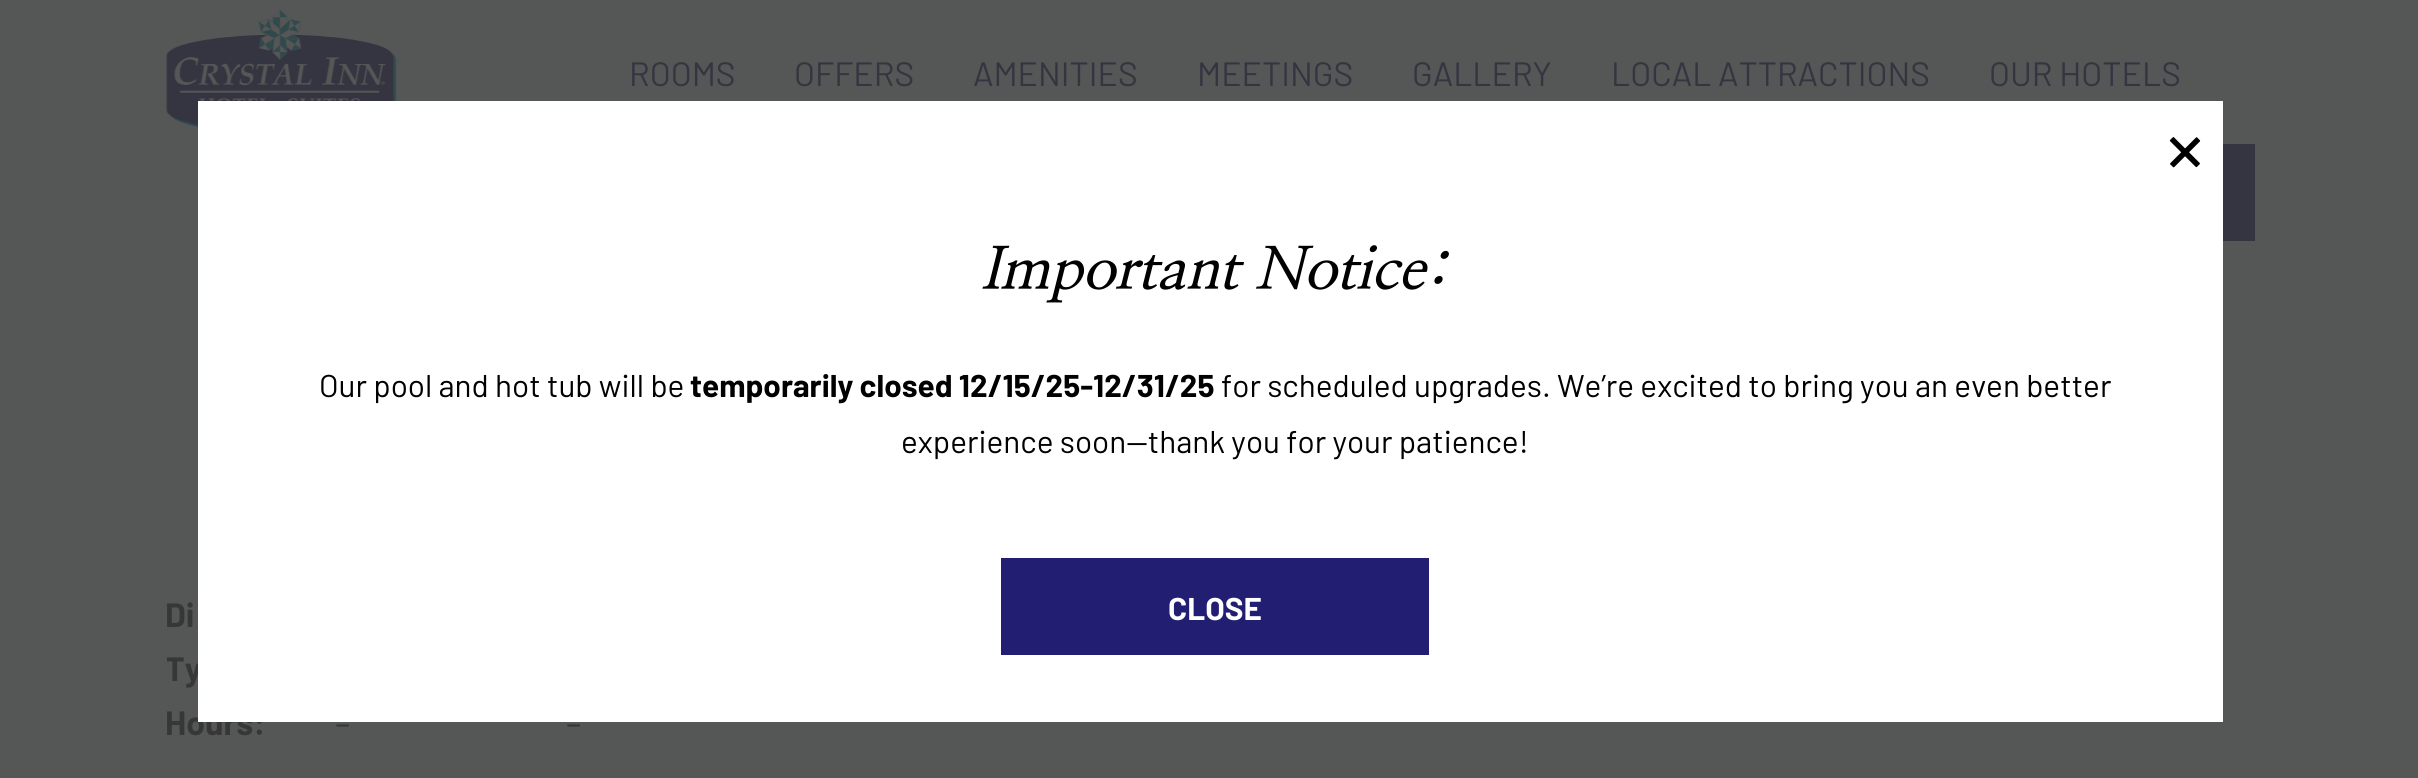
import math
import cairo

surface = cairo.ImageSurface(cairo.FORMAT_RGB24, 2418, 778)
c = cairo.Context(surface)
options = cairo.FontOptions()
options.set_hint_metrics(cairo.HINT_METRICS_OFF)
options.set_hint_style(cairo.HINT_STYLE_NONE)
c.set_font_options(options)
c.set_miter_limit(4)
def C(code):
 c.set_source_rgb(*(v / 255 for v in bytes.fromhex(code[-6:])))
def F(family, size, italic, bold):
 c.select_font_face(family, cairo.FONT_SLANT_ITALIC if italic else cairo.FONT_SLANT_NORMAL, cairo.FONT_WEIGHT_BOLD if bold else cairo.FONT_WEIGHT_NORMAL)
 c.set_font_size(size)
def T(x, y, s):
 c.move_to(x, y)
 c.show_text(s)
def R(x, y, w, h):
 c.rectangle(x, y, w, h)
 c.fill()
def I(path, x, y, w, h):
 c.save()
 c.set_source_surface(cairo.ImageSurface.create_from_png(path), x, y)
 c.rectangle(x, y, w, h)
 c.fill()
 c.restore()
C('555656')
c.paint()
I('1.png',166,9,231,118)
F('Barlow',33.75,0,0)
C('353441')
T(629,86,'ROOMS')
T(794,86,'OFFERS')
T(973,86,'AMENITIES')
T(1197,86,'MEETINGS')
T(1412,86,'GALLERY')
T(1611,86,'LOCAL ATTRACTIONS')
T(1989,86,'OUR HOTELS')
R(2223,144,32,97)
c.save()
c.rectangle(167,587,2088,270)
c.clip()
F('Barlow',33.75,0,1)
C('373737')
T(165,681,'Ty')
c.restore()
F('Barlow',33.75,0,1)
C('373737')
T(165,735,'Hours:')
C('ffffff')
R(198,101,2025,621)
F('Barlow',90,0,0)
C('000000')
T(2166,181,'×')
F('NanumMyeongjo',58.5,1,1)
T(981,289,'Important Notice:')
F('Barlow',31.5,0,0)
T(319,397,'Our pool and hot tub will be')
F('Barlow',31.5,0,1)
T(690,397,'temporarily closed 12/15/25-12/31/25')
F('Barlow',31.5,0,0)
T(1221,397,'for scheduled upgrades. We’re excited to bring you an even better')
T(901,453,'experience soon—thank you for your patience!')
C('221f73')
R(1001,558,428,97)
F('Barlow',31.5,0,1)
C('ffffff')
T(1168,620,'CLOSE')
F('Barlow',33.75,0,1)
C('373737')
T(165,627,'Di')
F('Barlow',33.75,0,0)
T(335,735,'–')
T(566,735,'–')
surface.write_to_png('o.png')
